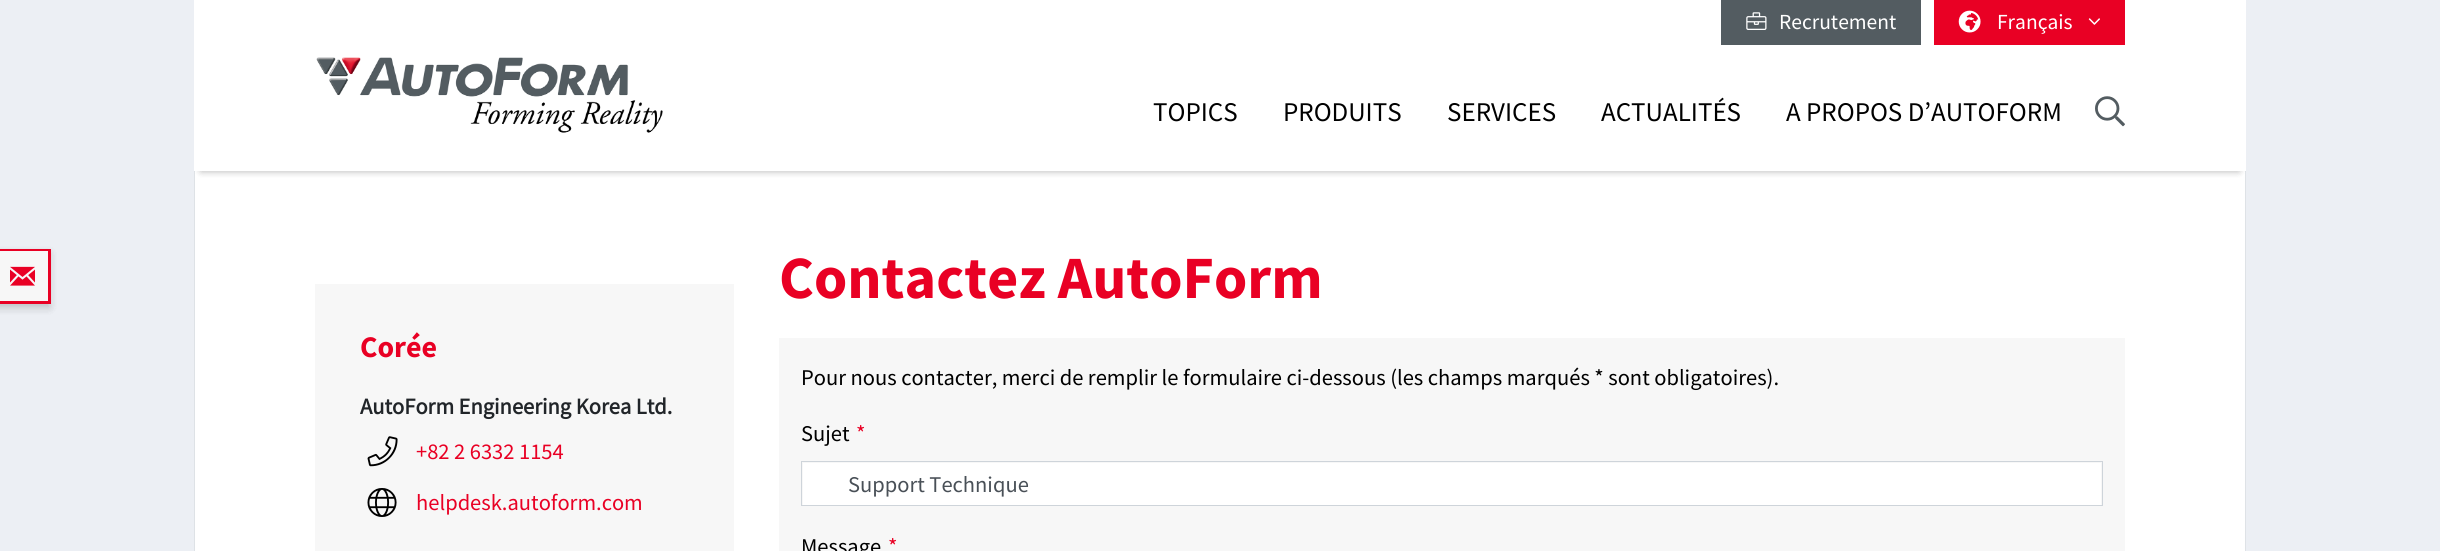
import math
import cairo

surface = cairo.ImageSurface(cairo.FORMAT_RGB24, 2440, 551)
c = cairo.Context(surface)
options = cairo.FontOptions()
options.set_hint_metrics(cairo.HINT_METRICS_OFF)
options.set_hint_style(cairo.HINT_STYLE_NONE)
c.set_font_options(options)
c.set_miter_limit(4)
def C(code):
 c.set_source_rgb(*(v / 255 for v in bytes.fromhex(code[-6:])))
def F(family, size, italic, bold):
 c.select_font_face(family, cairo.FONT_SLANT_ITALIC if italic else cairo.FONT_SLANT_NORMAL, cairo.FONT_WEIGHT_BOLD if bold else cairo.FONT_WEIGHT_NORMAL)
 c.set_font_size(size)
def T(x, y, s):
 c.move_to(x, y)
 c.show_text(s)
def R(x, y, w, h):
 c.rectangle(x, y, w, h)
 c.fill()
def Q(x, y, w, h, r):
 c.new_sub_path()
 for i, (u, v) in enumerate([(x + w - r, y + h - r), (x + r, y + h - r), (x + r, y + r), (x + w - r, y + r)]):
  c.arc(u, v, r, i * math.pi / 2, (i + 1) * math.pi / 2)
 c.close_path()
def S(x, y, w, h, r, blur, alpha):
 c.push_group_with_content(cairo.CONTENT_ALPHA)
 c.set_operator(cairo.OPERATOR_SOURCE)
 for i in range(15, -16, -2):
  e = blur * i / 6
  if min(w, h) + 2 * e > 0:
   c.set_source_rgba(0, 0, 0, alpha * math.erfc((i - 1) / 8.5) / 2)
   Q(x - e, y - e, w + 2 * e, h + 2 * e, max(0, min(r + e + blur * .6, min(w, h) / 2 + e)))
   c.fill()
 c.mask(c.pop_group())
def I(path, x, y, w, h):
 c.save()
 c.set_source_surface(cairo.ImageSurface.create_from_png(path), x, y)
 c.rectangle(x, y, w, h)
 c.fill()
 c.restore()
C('eceff4')
c.paint()
C('ffffff')
R(195,171,2050,380)
C('dee2e6')
R(2245,171,1,380)
R(194,171,1,380)
C('ffffff')
R(194,0,2052,45)
C('535c61')
R(1721,0,200,45)
I('1.png',1746,12,21,18)
F('Source Sans Pro',21.5,0,0)
C('ffffff')
T(1779,29,'Recrutement')
C('e90024')
R(1934,0,191,45)
I('2.png',1958,10,23,23)
C('ffffff')
T(1997,29,'Français')
I('3.png',2088,18,12,7)
C('000000')
S(201,60,2038,111,0,4,.16)
S(201,60,2038,111,0,4,.16)
C('ffffff')
R(194,45,2052,126)
I('4.png',316,57,347,76)
F('Source Sans Pro',27,0,0)
C('000000')
T(1153,121,'TOPICS')
T(1283,121,'PRODUITS')
T(1447,121,'SERVICES')
T(1601,121,'ACTUALITÉS')
T(1786,121,'A PROPOS D’AUTOFORM')
I('5.png',2095,96,30,31)
C('000000')
S(-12,253,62,55,0,4,.1)
S(-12,253,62,55,0,4,.1)
C('e90024')
R(0,249,50,2)
R(48,249,3,55)
R(0,301,50,3)
C('f7f7f7')
R(0,251,48,50)
I('6.png',10,266,25,20)
R(315,284,419,267)
F('Source Sans Pro',30,0,1)
C('e90024')
T(360,357,'Corée')
F('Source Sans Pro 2',22.5,0,1)
C('212529')
T(360,414,'AutoForm Engineering Korea Ltd.')
I('7.png',367,436,31,31)
F('Source Sans Pro',22.5,0,0)
C('e90024')
T(416,459,'+82 2 6332 1154')
I('8.png',367,488,30,29)
T(416,510,'helpdesk.autoform.com')
F('Source Sans Pro',60,0,1)
T(779,298,'Contactez AutoForm')
C('f7f7f7')
R(779,338,1346,213)
F('Source Sans Pro',22.5,0,0)
C('000000')
T(801,385,'Pour nous contacter, merci de remplir le formulaire ci-dessous (les champs marqués * sont obligatoires).')
T(801,441,'Sujet')
C('e90024')
T(856,441,'*')
C('ffffff')
R(803,463,1298,42)
c.rectangle(801.5,461.5,1301,44)
C('ced4da')
c.set_line_width(1)
c.stroke()
C('495057')
T(848,492,'Support Technique')
C('000000')
T(801,554,'Message')
C('e90024')
T(888,554,'*')
surface.write_to_png('o.png')
